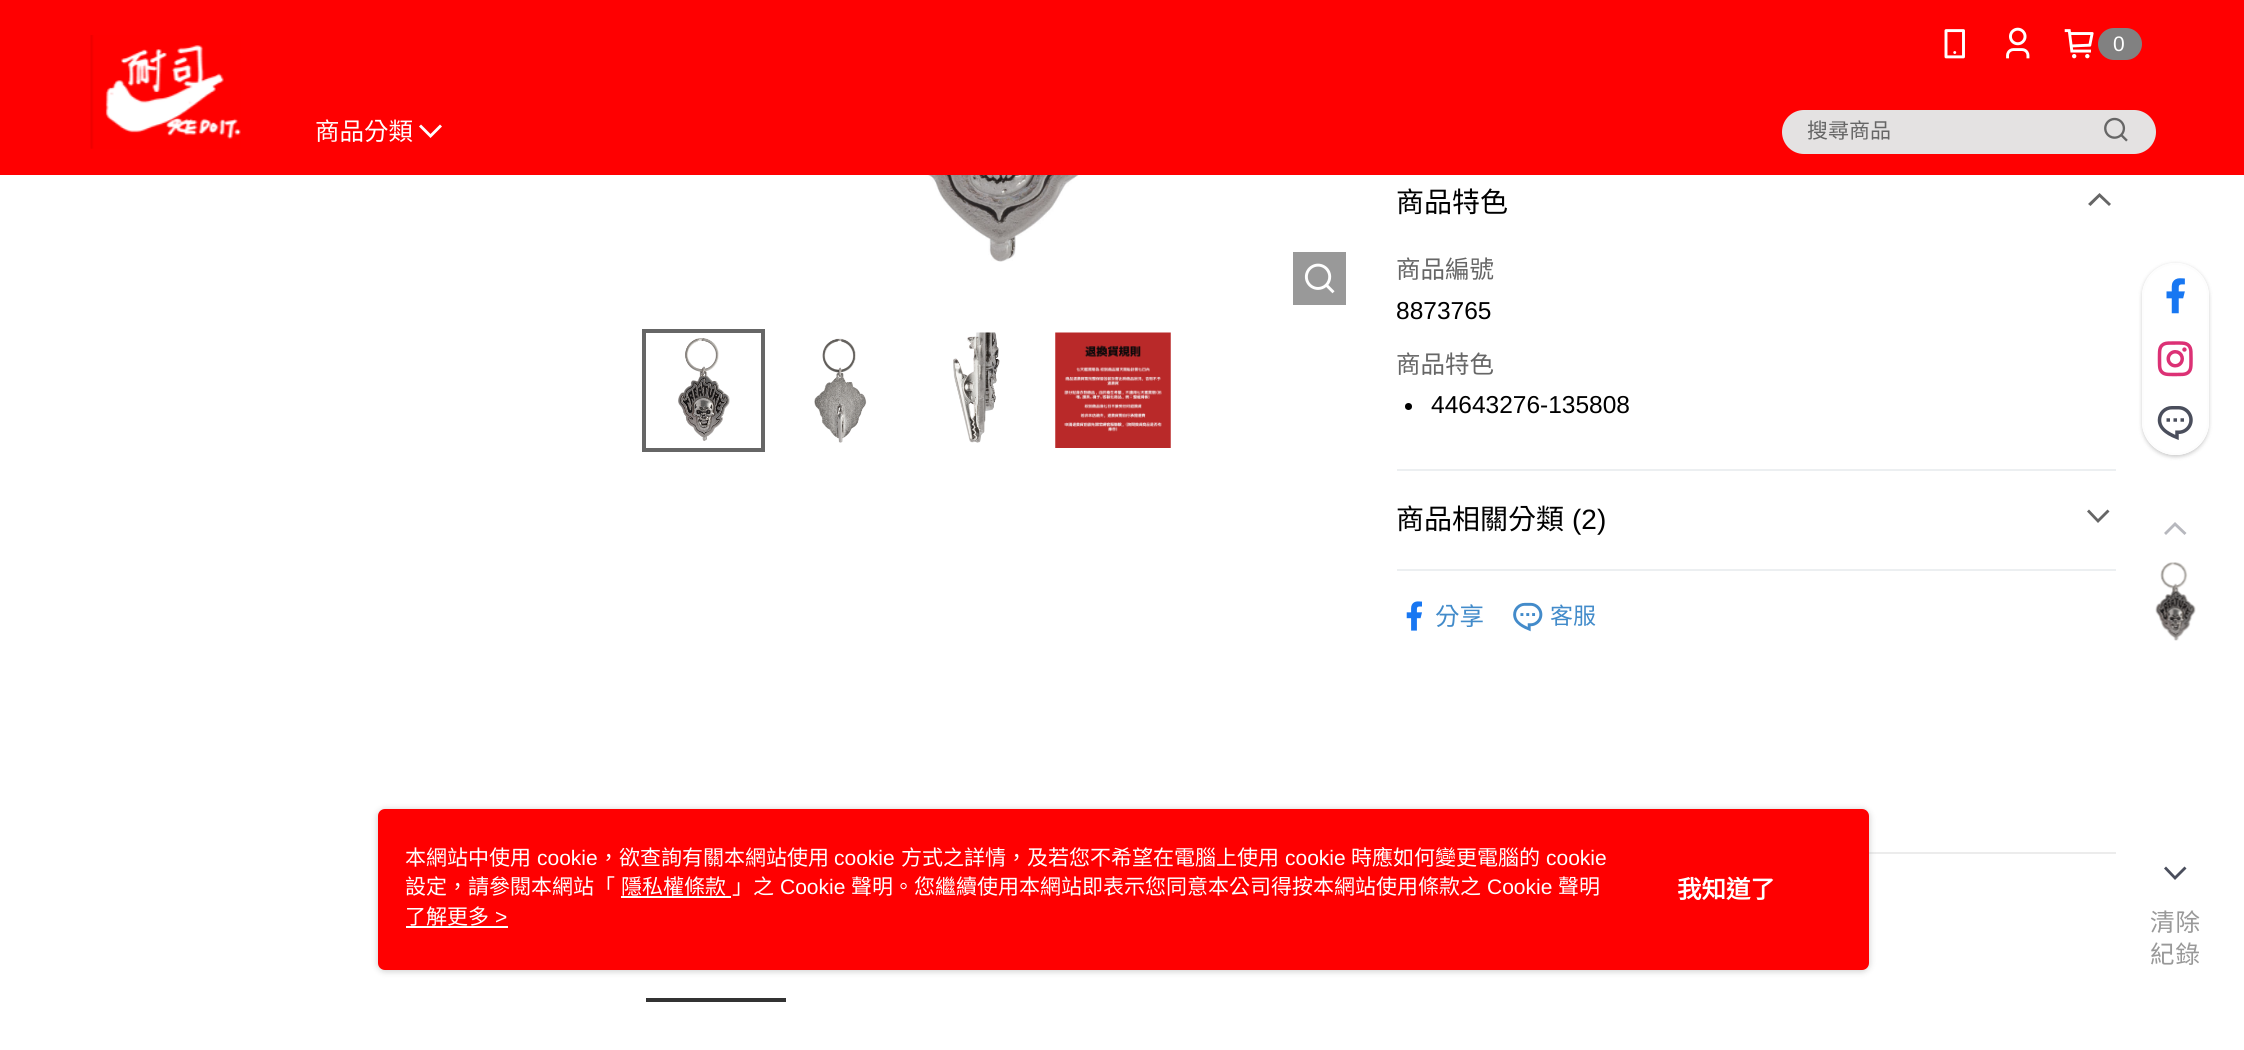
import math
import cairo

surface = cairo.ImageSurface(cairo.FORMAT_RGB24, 2244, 1050)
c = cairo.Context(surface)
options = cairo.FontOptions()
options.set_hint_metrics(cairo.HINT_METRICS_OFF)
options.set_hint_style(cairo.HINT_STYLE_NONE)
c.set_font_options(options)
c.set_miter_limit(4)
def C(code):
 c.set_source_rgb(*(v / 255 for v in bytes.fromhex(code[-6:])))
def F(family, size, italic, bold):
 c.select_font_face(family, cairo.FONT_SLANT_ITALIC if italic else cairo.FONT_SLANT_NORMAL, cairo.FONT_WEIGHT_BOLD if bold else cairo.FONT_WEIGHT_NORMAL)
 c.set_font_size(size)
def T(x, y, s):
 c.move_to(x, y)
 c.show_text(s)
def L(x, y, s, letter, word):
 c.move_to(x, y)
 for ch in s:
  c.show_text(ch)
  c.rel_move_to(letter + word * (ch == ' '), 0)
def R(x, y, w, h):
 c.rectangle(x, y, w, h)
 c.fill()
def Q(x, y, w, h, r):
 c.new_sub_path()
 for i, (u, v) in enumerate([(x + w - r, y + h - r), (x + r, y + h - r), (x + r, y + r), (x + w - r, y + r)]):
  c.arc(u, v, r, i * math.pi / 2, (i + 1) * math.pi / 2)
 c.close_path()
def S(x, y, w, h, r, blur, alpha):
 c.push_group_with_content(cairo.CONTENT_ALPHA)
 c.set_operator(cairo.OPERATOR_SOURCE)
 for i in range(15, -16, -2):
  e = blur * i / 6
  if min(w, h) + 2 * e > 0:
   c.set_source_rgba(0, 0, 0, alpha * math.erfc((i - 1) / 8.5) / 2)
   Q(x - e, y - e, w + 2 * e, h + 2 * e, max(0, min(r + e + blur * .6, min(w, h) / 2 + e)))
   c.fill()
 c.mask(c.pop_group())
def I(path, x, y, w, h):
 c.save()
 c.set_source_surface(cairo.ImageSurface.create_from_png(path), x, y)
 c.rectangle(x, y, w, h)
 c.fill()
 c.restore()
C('ffffff')
c.paint()
C('ff0001')
R(0,0,2244,175)
I('1.png',90,35,151,114)
I('2.png',1944,29,21,30)
I('3.png',2006,27,24,32)
I('4.png',2064,29,30,30)
C('818181')
Q(2098,28,44,32,16)
c.fill()
F('Liberation Sans',21,0,0)
C('ffffff')
T(2113,51,'0')
F('Noto Sans CJK TC',24.5,0,0)
T(315,140,'商品分類')
c.new_path()
c.move_to(421,124.5)
c.line_to(419,126.5)
c.line_to(430.5,138)
c.line_to(442,126.5)
c.line_to(440,124.5)
c.line_to(430.5,134)
c.close_path()
c.fill()
C('e4e2e2')
Q(1782,110,374,44,22)
c.fill()
F('Noto Sans CJK TC',21,0,0)
C('666666')
T(1807,138,'搜尋商品')
I('5.png',2104,117,24,25)
I('6.png',841,175,314,87)
C('999999')
R(1293,252,53,53)
I('7.png',1304,263,31,31)
I('8.png',678,338,52,103)
c.rectangle(644,331,119,119)
C('666666')
c.set_line_width(4)
c.stroke()
I('9.png',814,338,53,105)
I('10.png',953,332,47,111)
I('11.png',1055,332,116,116)
C('eceff1')
R(1397,469,719,2)
F('Noto Sans CJK TC',28,0,0)
C('000000')
T(1396,212,'商品特色')
C('666666')
c.new_path()
c.move_to(2109,206)
c.line_to(2111,204)
c.line_to(2099.5,193)
c.line_to(2088,204)
c.line_to(2090.5,206)
c.line_to(2099.5,197)
c.close_path()
c.fill()
F('Noto Sans CJK TC',24.5,0,0)
T(1396,278,'商品編號')
F('Liberation Sans',24.5,0,0)
C('000000')
T(1396,319,'8873765')
F('Noto Sans CJK TC',24.5,0,0)
C('666666')
T(1396,373,'商品特色')
C('000000')
c.new_path()
c.arc(1408.5,406.5,3.5,0,2 * math.pi)
c.fill()
F('Liberation Sans',24.5,0,0)
T(1431,413,'44643276-135808')
C('eceff1')
R(1397,569,719,2)
F('Noto Sans CJK TC',28,0,0)
C('000000')
T(1396,529,'商品相關分類')
F('Liberation Sans',28,0,0)
T(1572,529,'(2)')
C('666666')
c.new_path()
c.move_to(2089,509.5)
c.line_to(2087,511.5)
c.line_to(2098,523)
c.line_to(2109.5,511.5)
c.line_to(2107.5,509.5)
c.line_to(2098,519)
c.close_path()
c.fill()
I('12.png',1406,601,16,30)
F('Noto Sans CJK TC',24.5,0,0)
C('428bca')
T(1435,625,'分享')
I('13.png',1513,602,30,30)
F('Noto Sans CJK TC',23,0,0)
T(1550,624,'客服')
C('ececec')
R(1869,852,247,2)
C('333333')
R(646,998,140,4)
c.save()
c.set_fill_rule(cairo.FILL_RULE_EVEN_ODD)
c.new_path()
c.move_to(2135,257)
c.line_to(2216,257)
c.line_to(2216,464)
c.line_to(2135,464)
c.close_path()
c.move_to(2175.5,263)
c.curve_to(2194,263,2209,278,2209,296.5)
c.line_to(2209,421.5)
c.curve_to(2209,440,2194,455,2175.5,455)
c.curve_to(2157,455,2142,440,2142,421.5)
c.line_to(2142,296.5)
c.curve_to(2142,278,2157,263,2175.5,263)
c.close_path()
c.clip()
C('000000')
S(2142,264,67,193,33.5,2,.2)
c.restore()
c.set_source_rgba(1,1,1,0.9)
Q(2143,264,65,190,32.5)
c.fill_preserve()
C('fdfdfd')
c.set_line_width(2)
c.stroke()
I('14.png',2166,278,19,36)
I('15.png',2157,341,36,36)
I('16.png',2157,406,36,34)
C('b7b8be')
c.new_path()
c.move_to(2184.5,535)
c.line_to(2186.5,533)
c.line_to(2175,522)
c.line_to(2164,533)
c.line_to(2166,535)
c.line_to(2175,526)
c.close_path()
c.fill()
I('17.png',2155,562,41,79)
C('4a4e5c')
c.new_path()
c.move_to(2166,866.5)
c.line_to(2164,868.5)
c.line_to(2175,880)
c.line_to(2186.5,868.5)
c.line_to(2184.5,866.5)
c.line_to(2175,876)
c.close_path()
c.fill()
F('Noto Sans CJK TC',24.5,0,0)
C('999999')
L(2150,931,'清除',1,0)
L(2150,963,'紀錄',1,0)
C('979797')
S(378,810,1491,161,7,3.5,.5)
C('ff0001')
Q(378,809,1491,161,7)
c.fill()
F('Noto Sans CJK TC',21,0,0)
C('ffffff')
T(405,865,'本網站中使用')
F('Liberation Sans',21,0,0)
T(537,865,'cookie')
F('Noto Sans CJK TC',21,0,0)
T(598,865,'，欲查詢有關本網站使用')
F('Liberation Sans',21,0,0)
T(834,865,'cookie')
F('Noto Sans CJK TC',21,0,0)
T(901,865,'方式之詳情，及若您不希望在電腦上使用')
F('Liberation Sans',21,0,0)
T(1285,865,'cookie')
F('Noto Sans CJK TC',21,0,0)
T(1351,865,'時應如何變更電腦的')
F('Liberation Sans',21,0,0)
T(1546,865,'cookie')
F('Noto Sans CJK TC',21,0,0)
T(405,894,'設定，請參閱本網站「')
T(621,894,'隱私權條款')
R(621,896,110,2)
T(732,894,'」之')
F('Liberation Sans',21,0,0)
T(780,894,'Cookie')
F('Noto Sans CJK TC',21,0,0)
T(851,894,'聲明。您繼續使用本網站即表示您同意本公司得按本網站使用條款之')
F('Liberation Sans',21,0,0)
T(1487,894,'Cookie')
F('Noto Sans CJK TC',21,0,0)
T(1558,894,'聲明')
T(405,924,'了解更多')
F('Liberation Sans',21,0,0)
T(495,924,'>')
R(406,926,102,2)
F('Noto Sans CJK TC',24.5,0,1)
T(1677,898,'我知道了')
surface.write_to_png('o.png')
